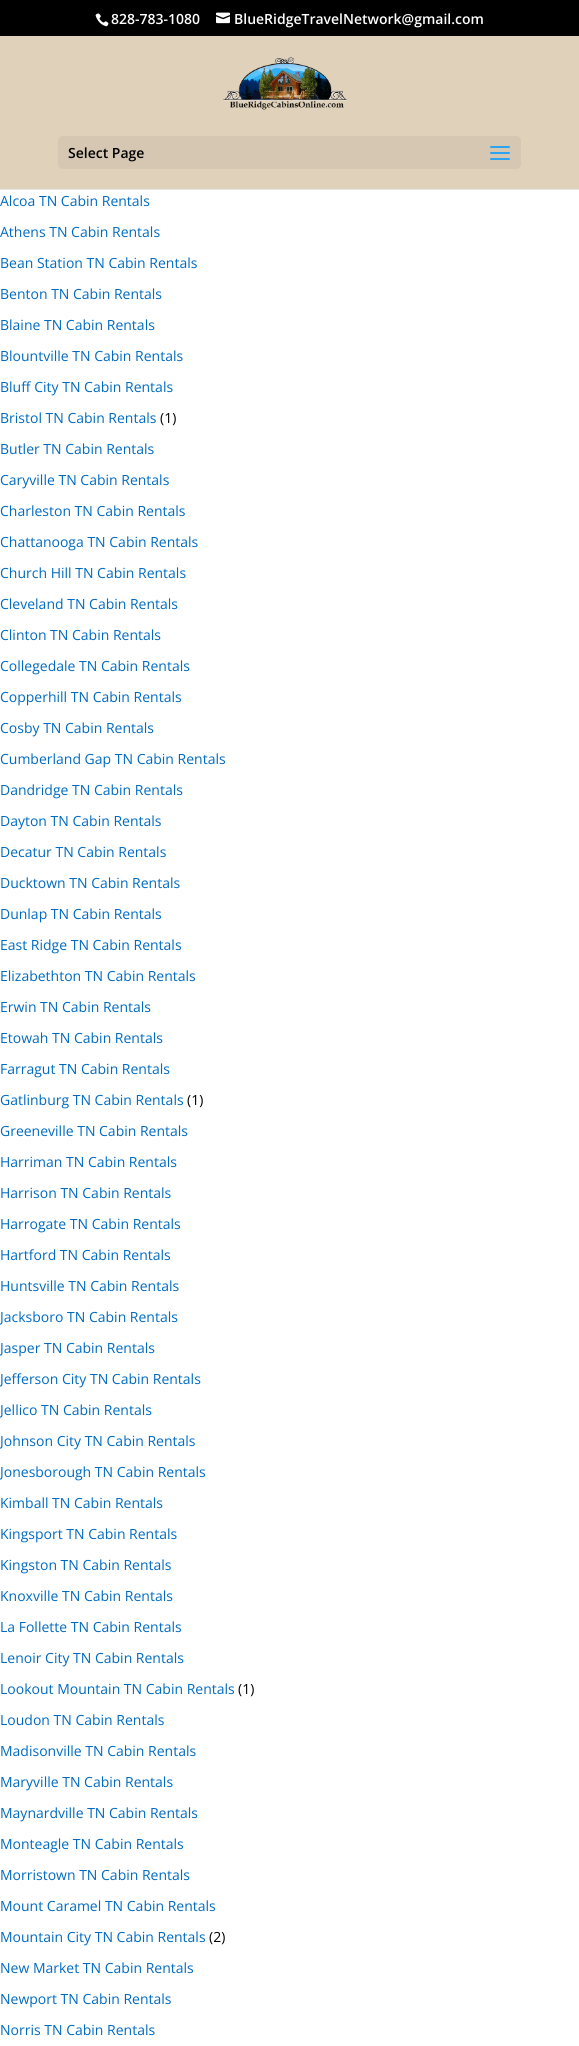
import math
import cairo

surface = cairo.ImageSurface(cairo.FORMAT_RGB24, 579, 2046)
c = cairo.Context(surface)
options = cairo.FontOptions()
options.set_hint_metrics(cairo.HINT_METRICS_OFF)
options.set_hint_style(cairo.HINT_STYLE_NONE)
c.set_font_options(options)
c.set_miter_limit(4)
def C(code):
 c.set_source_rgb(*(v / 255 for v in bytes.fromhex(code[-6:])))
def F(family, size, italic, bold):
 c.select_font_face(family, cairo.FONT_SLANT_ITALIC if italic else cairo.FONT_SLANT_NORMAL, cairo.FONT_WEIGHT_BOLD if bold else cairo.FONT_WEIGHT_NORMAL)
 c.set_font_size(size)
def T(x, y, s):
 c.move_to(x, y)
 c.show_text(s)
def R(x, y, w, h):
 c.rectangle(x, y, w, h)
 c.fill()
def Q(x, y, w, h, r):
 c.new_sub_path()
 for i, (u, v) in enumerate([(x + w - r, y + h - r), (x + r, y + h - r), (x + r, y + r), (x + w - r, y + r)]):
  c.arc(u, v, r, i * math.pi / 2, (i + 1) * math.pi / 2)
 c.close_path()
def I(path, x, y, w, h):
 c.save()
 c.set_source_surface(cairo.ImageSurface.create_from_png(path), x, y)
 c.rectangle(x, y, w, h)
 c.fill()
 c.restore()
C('ffffff')
c.paint()
C('000000')
R(0,0,579,36)
I('1.png',95,13,14,14)
F('Open Sans SemiBold',14,0,0)
C('ffffff')
T(111,24,'828-783-1080')
I('2.png',216,12,14,12)
T(234,24,'BlueRidgeTravelNetwork@gmail.com')
C('e6e6e6')
R(0,189,579,1)
C('e0d1ba')
R(0,36,579,153)
I('3.png',223,57,124,53)
C('d5c7b1')
Q(58,136,463,33,5)
c.fill()
C('000000')
T(68,158,'Select Page')
I('4.png',490,146,20,14)
F('Open Sans',14,0,0)
C('006ac1')
T(0,206,'Alcoa TN Cabin Rentals')
T(0,237,'Athens TN Cabin Rentals')
T(0,268,'Bean Station TN Cabin Rentals')
T(0,299,'Benton TN Cabin Rentals')
T(0,330,'Blaine TN Cabin Rentals')
T(0,361,'Blountville TN Cabin Rentals')
T(0,392,'Bluff City TN Cabin Rentals')
T(0,423,'Bristol TN Cabin Rentals')
C('000000')
T(160,423,'(1)')
C('006ac1')
T(0,454,'Butler TN Cabin Rentals')
T(0,485,'Caryville TN Cabin Rentals')
T(0,516,'Charleston TN Cabin Rentals')
T(0,547,'Chattanooga TN Cabin Rentals')
T(0,578,'Church Hill TN Cabin Rentals')
T(0,609,'Cleveland TN Cabin Rentals')
T(0,640,'Clinton TN Cabin Rentals')
T(0,671,'Collegedale TN Cabin Rentals')
T(0,702,'Copperhill TN Cabin Rentals')
T(0,733,'Cosby TN Cabin Rentals')
T(0,764,'Cumberland Gap TN Cabin Rentals')
T(0,795,'Dandridge TN Cabin Rentals')
T(0,826,'Dayton TN Cabin Rentals')
T(0,857,'Decatur TN Cabin Rentals')
T(0,888,'Ducktown TN Cabin Rentals')
T(0,919,'Dunlap TN Cabin Rentals')
T(0,950,'East Ridge TN Cabin Rentals')
T(0,981,'Elizabethton TN Cabin Rentals')
T(0,1012,'Erwin TN Cabin Rentals')
T(0,1043,'Etowah TN Cabin Rentals')
T(0,1074,'Farragut TN Cabin Rentals')
T(0,1105,'Gatlinburg TN Cabin Rentals')
C('000000')
T(187,1105,'(1)')
C('006ac1')
T(0,1136,'Greeneville TN Cabin Rentals')
T(0,1167,'Harriman TN Cabin Rentals')
T(0,1198,'Harrison TN Cabin Rentals')
T(0,1229,'Harrogate TN Cabin Rentals')
T(0,1260,'Hartford TN Cabin Rentals')
T(0,1291,'Huntsville TN Cabin Rentals')
T(0,1322,'Jacksboro TN Cabin Rentals')
T(0,1353,'Jasper TN Cabin Rentals')
T(0,1384,'Jefferson City TN Cabin Rentals')
T(0,1415,'Jellico TN Cabin Rentals')
T(0,1446,'Johnson City TN Cabin Rentals')
T(0,1477,'Jonesborough TN Cabin Rentals')
T(0,1508,'Kimball TN Cabin Rentals')
T(0,1539,'Kingsport TN Cabin Rentals')
T(0,1570,'Kingston TN Cabin Rentals')
T(0,1601,'Knoxville TN Cabin Rentals')
T(0,1632,'La Follette TN Cabin Rentals')
T(0,1663,'Lenoir City TN Cabin Rentals')
T(0,1694,'Lookout Mountain TN Cabin Rentals')
C('000000')
T(238,1694,'(1)')
C('006ac1')
T(0,1725,'Loudon TN Cabin Rentals')
T(0,1756,'Madisonville TN Cabin Rentals')
T(0,1787,'Maryville TN Cabin Rentals')
T(0,1818,'Maynardville TN Cabin Rentals')
T(0,1849,'Monteagle TN Cabin Rentals')
T(0,1880,'Morristown TN Cabin Rentals')
T(0,1911,'Mount Caramel TN Cabin Rentals')
T(0,1942,'Mountain City TN Cabin Rentals')
C('000000')
T(209,1942,'(2)')
C('006ac1')
T(0,1973,'New Market TN Cabin Rentals')
T(0,2004,'Newport TN Cabin Rentals')
T(0,2035,'Norris TN Cabin Rentals')
surface.write_to_png('o.png')
